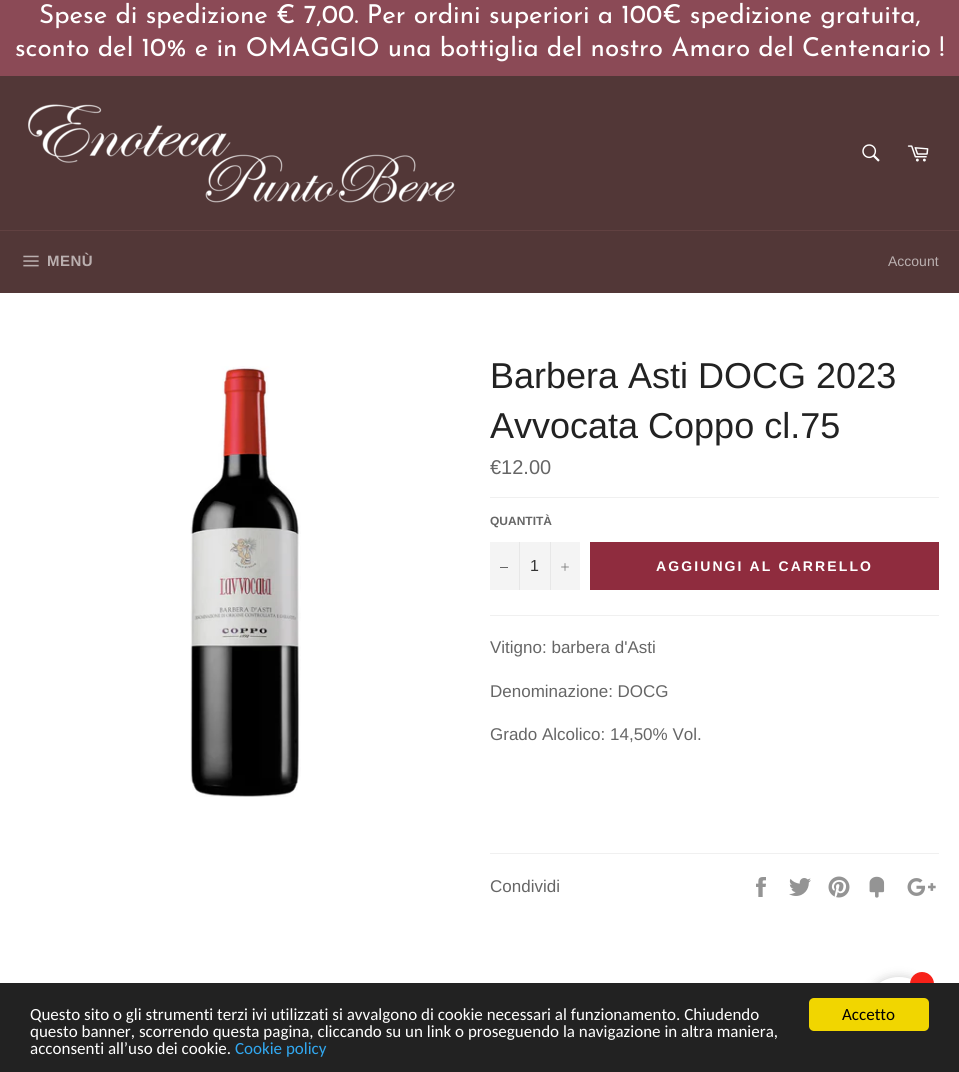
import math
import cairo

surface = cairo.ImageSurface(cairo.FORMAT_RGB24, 959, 1072)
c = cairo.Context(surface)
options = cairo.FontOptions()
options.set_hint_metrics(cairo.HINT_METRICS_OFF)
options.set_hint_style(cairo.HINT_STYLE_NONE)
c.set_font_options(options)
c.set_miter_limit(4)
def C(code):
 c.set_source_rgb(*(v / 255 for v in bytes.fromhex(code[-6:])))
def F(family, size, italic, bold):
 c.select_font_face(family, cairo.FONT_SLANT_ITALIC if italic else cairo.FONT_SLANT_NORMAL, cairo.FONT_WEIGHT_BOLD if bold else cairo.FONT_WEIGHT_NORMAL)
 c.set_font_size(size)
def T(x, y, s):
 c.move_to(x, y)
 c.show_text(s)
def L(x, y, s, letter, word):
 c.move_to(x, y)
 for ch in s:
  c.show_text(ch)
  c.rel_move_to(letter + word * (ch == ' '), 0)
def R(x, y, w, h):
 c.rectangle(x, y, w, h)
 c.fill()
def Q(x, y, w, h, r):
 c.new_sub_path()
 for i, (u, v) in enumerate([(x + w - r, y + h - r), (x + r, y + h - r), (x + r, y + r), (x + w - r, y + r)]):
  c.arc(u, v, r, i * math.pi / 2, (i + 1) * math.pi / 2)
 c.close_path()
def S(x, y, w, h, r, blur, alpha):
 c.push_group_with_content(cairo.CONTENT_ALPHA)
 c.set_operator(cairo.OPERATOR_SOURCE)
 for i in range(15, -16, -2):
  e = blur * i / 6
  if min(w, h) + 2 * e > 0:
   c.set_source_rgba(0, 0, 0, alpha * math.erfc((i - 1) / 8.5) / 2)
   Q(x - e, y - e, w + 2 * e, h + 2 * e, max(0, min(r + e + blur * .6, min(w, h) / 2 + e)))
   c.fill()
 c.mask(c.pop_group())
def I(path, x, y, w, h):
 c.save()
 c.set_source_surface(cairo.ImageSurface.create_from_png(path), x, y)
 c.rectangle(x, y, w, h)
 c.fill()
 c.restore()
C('ffffff')
c.paint()
C('8b4a56')
R(0,0,959,76)
F('Josefin Sans Thin',26,0,0)
C('ffffff')
T(39,23,'Spese di spedizione € 7,00. Per ordini superiori a 100€ spedizione gratuita,')
T(15,56,'sconto del 10% e in OMAGGIO una bottiglia del nostro Amaro del Centenario !')
C('523737')
R(0,76,959,154)
I('1.png',28,104,428,99)
I('2.png',862,144,18,18)
I('3.png',907,145,22,17)
R(0,231,959,62)
C('614141')
R(0,230,959,1)
I('4.png',23,255,16,12)
F('Liberation Sans',15,0,1)
C('baafaf')
L(47,266,'MENÙ',.5,0)
F('Liberation Sans',14,0,0)
T(888,266,'Account')
I('5.png',190,366,111,431)
F('Liberation Sans',36,0,0)
C('222222')
T(490,388,'Barbera Asti DOCG 2023')
T(490,438,'Avvocata Coppo cl.75')
F('Liberation Sans',20,0,0)
C('666666')
T(490,474,'€12.00')
C('f0f0f0')
R(490,497,449,1)
F('Liberation Sans',12,0,1)
C('666666')
T(490,525,'QUANTITÀ')
C('f4f4f4')
R(490,542,90,48)
C('e7e7e7')
R(519,542,1,48)
C('666666')
R(500,567,8,1)
F('Liberation Sans',16,0,0)
C('333333')
T(530,571,'1')
C('e7e7e7')
R(550,542,1,48)
I('6.png',561,563,8,8)
C('8f2c3e')
R(590,542,349,48)
F('Liberation Sans',14,0,1)
C('ffffff')
L(656,571,'AGGIUNGI AL CARRELLO',2.1,0)
C('f0f0f0')
R(490,615,449,1)
F('Liberation Sans',17,0,0)
C('666666')
T(490,653,'Vitigno: barbera d\'Asti')
T(490,697,'Denominazione: DOCG')
T(490,740,'Grado Alcolico: 14,50% Vol.')
C('f0f0f0')
R(490,853,449,1)
C('666666')
T(490,892,'Condividi')
I('7.png',756,877,10,20)
I('8.png',789,878,22,18)
I('9.png',828,876,22,22)
I('10.png',869,876,16,22)
I('11.png',907,878,29,18)
C('000000')
S(863,977,72,72,36,5,.2)
C('ffffff')
c.arc(899,1012,35,0,2 * math.pi)
c.fill()
C('f72119')
c.arc(922,984,12,0,2 * math.pi)
c.fill()
C('222222')
R(0,983,959,89)
F('Carlito',17,0,0)
C('ffffff')
T(30,1020,'Questo sito o gli strumenti terzi ivi utilizzati si avvalgono di cookie necessari al funzionamento. Chiudendo')
T(30,1037,'questo banner, scorrendo questa pagina, cliccando su un link o proseguendo la navigazione in altra maniera,')
T(30,1054,'acconsenti all’uso dei cookie.')
C('31a8f0')
T(235,1054,'Cookie policy')
C('f1d600')
Q(809,998,120,33,5)
c.fill()
C('000000')
T(842,1020,'Accetto')
surface.write_to_png('o.png')
